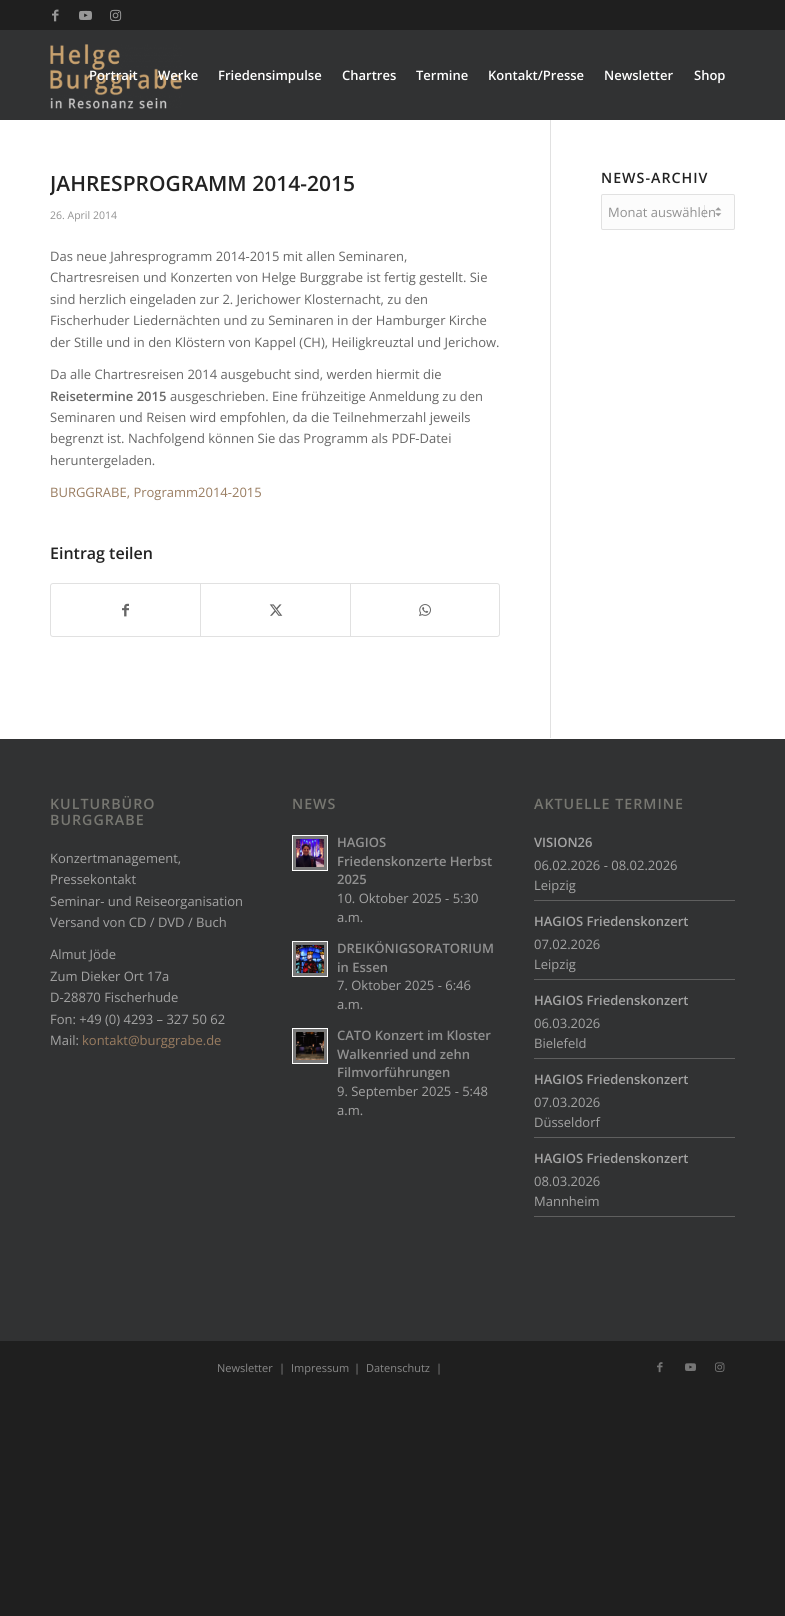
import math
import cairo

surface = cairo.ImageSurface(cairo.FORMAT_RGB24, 785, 1616)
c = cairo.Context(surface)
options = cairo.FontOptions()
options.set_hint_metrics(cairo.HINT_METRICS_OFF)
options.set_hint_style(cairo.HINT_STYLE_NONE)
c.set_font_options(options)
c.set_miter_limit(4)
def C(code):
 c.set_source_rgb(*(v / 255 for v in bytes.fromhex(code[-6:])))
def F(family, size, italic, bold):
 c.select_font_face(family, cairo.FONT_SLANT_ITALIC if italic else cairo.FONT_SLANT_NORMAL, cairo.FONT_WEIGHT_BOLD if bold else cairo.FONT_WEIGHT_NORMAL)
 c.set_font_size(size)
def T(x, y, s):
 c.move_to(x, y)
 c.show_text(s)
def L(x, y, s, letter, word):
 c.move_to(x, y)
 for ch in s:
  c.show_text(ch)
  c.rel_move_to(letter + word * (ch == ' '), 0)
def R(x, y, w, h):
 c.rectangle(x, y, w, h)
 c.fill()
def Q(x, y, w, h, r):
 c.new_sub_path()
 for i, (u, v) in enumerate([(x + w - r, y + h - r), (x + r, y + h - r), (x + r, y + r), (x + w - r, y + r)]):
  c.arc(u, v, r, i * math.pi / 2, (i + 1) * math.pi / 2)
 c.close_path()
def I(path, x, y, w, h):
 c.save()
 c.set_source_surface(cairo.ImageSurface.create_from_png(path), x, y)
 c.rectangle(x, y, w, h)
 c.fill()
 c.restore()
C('1f1f1f')
c.paint()
I('1.png',52,9,7,13)
I('2.png',79,10,13,10)
I('3.png',110,9,12,12)
C('313233')
R(0,30,785,90)
I('4.png',50,44,132,65)
F('Open Sans SemiBold',13,0,0)
C('ffffff')
T(89,80,'Portrait')
T(158,80,'Werke')
T(218,80,'Friedensimpulse')
T(342,80,'Chartres')
T(416,80,'Termine')
T(488,80,'Kontakt/Presse')
T(604,80,'Newsletter')
T(694,80,'Shop')
C('313233')
R(0,739,785,602)
C('ffffff')
R(0,120,785,619)
C('e1e1e1')
R(550,120,1,618)
c.save()
c.rectangle(50,170,500,518)
c.clip()
F('Open Sans SemiBold',21,0,0)
C('222222')
T(50,191,'JAHRESPROGRAMM 2014-2015')
c.restore()
F('Open Sans',10.5,0,0)
C('919191')
T(50,219,'26. April 2014')
F('Open Sans',13,0,0)
C('666666')
T(50,261,'Das neue Jahresprogramm 2014-2015 mit allen Seminaren,')
T(50,282,'Chartresreisen und Konzerten von Helge Burggrabe ist fertig gestellt. Sie')
T(50,304,'sind herzlich eingeladen zur 2. Jerichower Klosternacht, zu den')
T(50,325,'Fischerhuder Liedernächten und zu Seminaren in der Hamburger Kirche')
T(50,347,'der Stille und in den Klöstern von Kappel (CH), Heiligkreuztal und Jerichow.')
T(50,379,'Da alle Chartresreisen 2014 ausgebucht sind, werden hiermit die')
F('Open Sans SemiBold',13,0,0)
T(50,401,'Reisetermine 2015')
F('Open Sans',13,0,0)
T(170,401,'ausgeschrieben. Eine frühzeitige Anmeldung zu den')
T(50,422,'Seminaren und Reisen wird empfohlen, da die Teilnehmerzahl jeweils')
T(50,443,'begrenzt ist. Nachfolgend können Sie das Programm als PDF-Datei')
T(50,465,'heruntergeladen.')
C('997c60')
T(50,497,'BURGGRABE, Programm2014-2015')
F('Open Sans SemiBold',16,0,0)
C('222222')
T(50,559,'Eintrag teilen')
Q(50.5,583.5,449,53,2.5)
C('e1e1e1')
c.set_line_width(1)
c.stroke()
I('5.png',122,603,7,14)
R(200,584,1,52)
I('6.png',269,604,14,12)
R(350,584,1,52)
I('7.png',419,604,12,13)
F('Open Sans SemiBold',14.25,0,0)
C('222222')
L(601,183,'NEWS-ARCHIV',1,0)
C('fcfcfc')
Q(601,194,134,36,2)
c.fill()
I('8.png',704,205,18,13)
Q(601.5,194.5,133,35,1.5)
C('e1e1e1')
c.stroke()
F('Open Sans',13,0,0)
C('919191')
T(608,217,'Monat auswählen')
F('Open Sans SemiBold',14.25,0,0)
C('777771')
L(50,809,'KULTURBÜRO',1,0)
L(50,825,'BURGGRABE',1,0)
F('Open Sans',13,0,0)
C('a4a4a4')
T(50,863,'Konzertmanagement,')
T(50,884,'Pressekontakt')
T(50,906,'Seminar- und Reiseorganisation')
T(50,927,'Versand von CD / DVD / Buch')
T(50,959,'Almut Jöde')
T(50,981,'Zum Dieker Ort 17a')
T(50,1002,'D-28870 Fischerhude')
T(50,1024,'Fon: +49 (0) 4293 – 327 50 62')
T(50,1045,'Mail:')
C('997c60')
T(82,1045,'kontakt@burggrabe.de')
F('Open Sans SemiBold',14.25,0,0)
C('777771')
L(292,809,'NEWS',1,0)
C('777777')
c.rectangle(292.5,835.5,35,35)
c.fill_preserve()
C('ffffff')
c.stroke()
I('9.png',296,839,28,28)
F('Open Sans SemiBold',13,0,0)
C('919191')
T(337,847,'HAGIOS')
T(337,866,'Friedenskonzerte Herbst')
T(337,884,'2025')
F('Open Sans',13,0,0)
C('a4a4a4')
T(337,903,'10. Oktober 2025 - 5:30')
T(337,922,'a.m.')
C('777777')
c.rectangle(292.5,941.5,35,35)
c.fill_preserve()
C('ffffff')
c.stroke()
I('10.png',296,945,28,28)
F('Open Sans SemiBold',13,0,0)
C('919191')
T(337,953,'DREIKÖNIGSORATORIUM')
T(337,972,'in Essen')
F('Open Sans',13,0,0)
C('a4a4a4')
T(337,990,'7. Oktober 2025 - 6:46')
T(337,1009,'a.m.')
C('777777')
c.rectangle(292.5,1028.5,35,35)
c.fill_preserve()
C('ffffff')
c.stroke()
I('11.png',296,1032,28,28)
F('Open Sans SemiBold',13,0,0)
C('919191')
T(337,1040,'CATO Konzert im Kloster')
T(337,1059,'Walkenried und zehn')
T(337,1077,'Filmvorführungen')
F('Open Sans',13,0,0)
C('a4a4a4')
T(337,1096,'9. September 2025 - 5:48')
T(337,1115,'a.m.')
F('Open Sans SemiBold',14.25,0,0)
C('777771')
L(534,809,'AKTUELLE TERMINE',1,0)
F('Open Sans SemiBold',13,0,0)
C('a4a4a4')
T(534,847,'VISION26')
F('Open Sans',13,0,0)
T(534,870,'06.02.2026 - 08.02.2026')
C('5f5f5f')
R(534,900,201,1)
C('a4a4a4')
T(534,890,'Leipzig')
F('Open Sans SemiBold',13,0,0)
T(534,926,'HAGIOS Friedenskonzert')
F('Open Sans',13,0,0)
T(534,949,'07.02.2026')
C('5f5f5f')
R(534,979,201,1)
C('a4a4a4')
T(534,969,'Leipzig')
F('Open Sans SemiBold',13,0,0)
T(534,1005,'HAGIOS Friedenskonzert')
F('Open Sans',13,0,0)
T(534,1028,'06.03.2026')
C('5f5f5f')
R(534,1058,201,1)
C('a4a4a4')
T(534,1048,'Bielefeld')
F('Open Sans SemiBold',13,0,0)
T(534,1084,'HAGIOS Friedenskonzert')
F('Open Sans',13,0,0)
T(534,1107,'07.03.2026')
C('5f5f5f')
R(534,1137,201,1)
C('a4a4a4')
T(534,1127,'Düsseldorf')
F('Open Sans SemiBold',13,0,0)
T(534,1163,'HAGIOS Friedenskonzert')
F('Open Sans',13,0,0)
T(534,1186,'08.03.2026')
C('5f5f5f')
R(534,1216,201,1)
C('a4a4a4')
T(534,1206,'Mannheim')
F('Open Sans',11,0,0)
C('898989')
T(217,1372,'Newsletter')
T(279,1372,'|')
T(291,1372,'Impressum')
T(354,1372,'|')
T(366,1372,'Datenschutz')
T(436,1372,'|')
I('12.png',657,1362,6,11)
I('13.png',685,1363,11,8)
I('14.png',715,1362,10,10)
surface.write_to_png('o.png')
